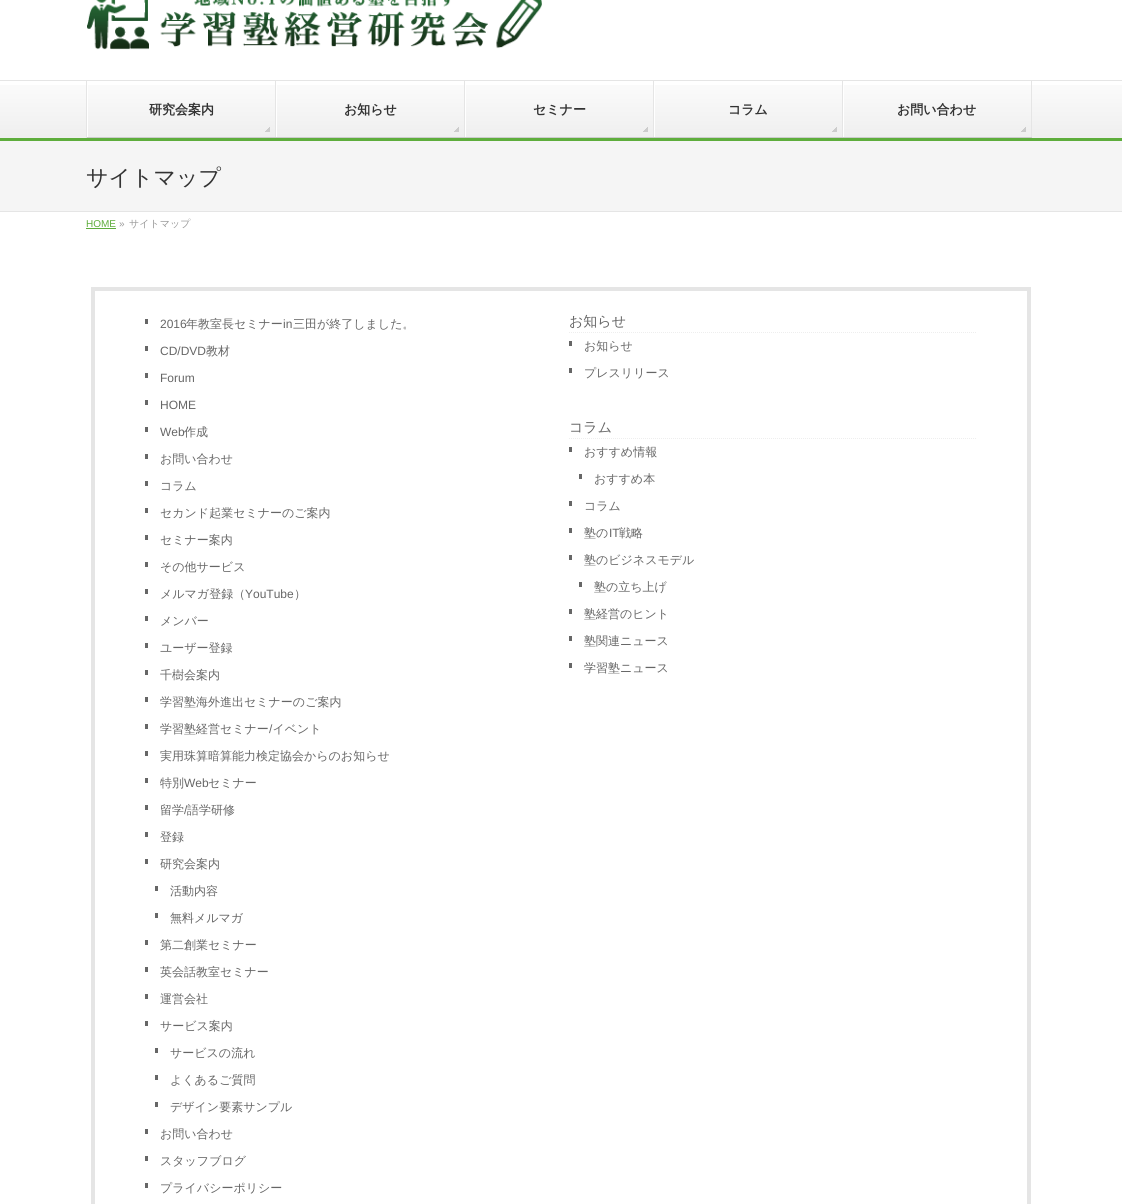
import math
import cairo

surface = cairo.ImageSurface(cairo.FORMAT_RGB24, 1122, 1204)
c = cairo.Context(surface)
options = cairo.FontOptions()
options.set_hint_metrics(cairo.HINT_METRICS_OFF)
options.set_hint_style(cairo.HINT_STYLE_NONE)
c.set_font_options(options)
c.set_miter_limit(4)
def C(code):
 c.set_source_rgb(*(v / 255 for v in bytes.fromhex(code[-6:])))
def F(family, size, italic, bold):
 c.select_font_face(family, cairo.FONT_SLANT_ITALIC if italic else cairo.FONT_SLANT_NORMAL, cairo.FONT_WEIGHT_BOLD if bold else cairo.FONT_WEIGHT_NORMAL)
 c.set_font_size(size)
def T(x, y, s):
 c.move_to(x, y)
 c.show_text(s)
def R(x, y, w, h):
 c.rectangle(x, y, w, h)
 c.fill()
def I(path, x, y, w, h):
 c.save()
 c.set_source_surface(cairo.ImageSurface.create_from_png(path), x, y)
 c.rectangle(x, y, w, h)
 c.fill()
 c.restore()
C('ffffff')
c.paint()
I('1.png',87,0,455,50)
I('2.png',0,85,1122,53)
C('e5e5e5')
R(0,80,1122,1)
C('5ead3c')
R(0,138,1122,3)
C('e5e5e5')
R(86,81,1,57)
C('ffffff')
R(87,81,1,57)
I('3.png',265,127,5,5)
C('e5e5e5')
R(275,81,1,57)
C('cccccc')
R(87,137,189,1)
F('WenQuanYi Zen Hei',13,0,1)
C('333333')
T(149,114,'研究会案内')
C('ffffff')
R(276,81,1,57)
I('3.png',454,127,5,5)
C('e5e5e5')
R(464,81,1,57)
C('cccccc')
R(276,137,189,1)
C('333333')
T(344,114,'お知らせ')
C('ffffff')
R(465,81,1,57)
I('3.png',643,127,5,5)
C('e5e5e5')
R(653,81,1,57)
C('cccccc')
R(465,137,189,1)
C('333333')
T(533,114,'セミナー')
C('ffffff')
R(654,81,1,57)
I('3.png',832,127,5,5)
C('e5e5e5')
R(842,81,1,57)
C('cccccc')
R(654,137,189,1)
C('333333')
T(728,114,'コラム')
C('ffffff')
R(843,81,1,57)
I('3.png',1021,127,5,5)
C('e5e5e5')
R(1031,81,1,57)
C('cccccc')
R(843,137,189,1)
C('333333')
T(897,114,'お問い合わせ')
C('f5f5f5')
R(0,141,1122,70)
C('e5e5e5')
R(0,211,1122,1)
F('WenQuanYi Zen Hei Medium',22,0,0)
C('333333')
T(86,185,'サイトマップ')
F('Liberation Sans',10,0,0)
C('5ead3c')
T(86,227,'HOME')
R(86,228,30,1)
C('999999')
T(119,227,'»')
F('WenQuanYi Zen Hei Medium',10,0,0)
T(129,227,'サイトマップ')
c.rectangle(93,289,936,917)
C('e5e5e5')
c.set_line_width(4)
c.stroke()
C('666666')
R(145,319,3,5)
F('Liberation Sans',12,0,0)
T(160,328,'2016')
F('WenQuanYi Zen Hei Medium',12,0,0)
T(186,328,'年教室長セミナー')
F('Liberation Sans',12,0,0)
T(283,328,'in')
F('WenQuanYi Zen Hei Medium',12,0,0)
T(293,328,'三田が終了しました。')
R(145,346,3,5)
F('Liberation Sans',12,0,0)
T(160,355,'CD/DVD')
F('WenQuanYi Zen Hei Medium',12,0,0)
T(206,355,'教材')
R(145,373,3,5)
F('Liberation Sans',12,0,0)
T(160,382,'Forum')
R(145,400,3,5)
T(160,409,'HOME')
R(145,427,3,5)
T(160,436,'Web')
F('WenQuanYi Zen Hei Medium',12,0,0)
T(184,436,'作成')
R(145,454,3,5)
T(160,463,'お問い合わせ')
R(145,481,3,5)
T(160,490,'コラム')
R(145,508,3,5)
T(160,517,'セカンド起業セミナーのご案内')
R(145,535,3,5)
T(160,544,'セミナー案内')
R(145,562,3,5)
T(160,571,'その他サービス')
R(145,589,3,5)
T(160,598,'メルマガ登録（')
F('Liberation Sans',12,0,0)
T(245,598,'YouTube')
F('WenQuanYi Zen Hei Medium',12,0,0)
T(294,598,'）')
R(145,616,3,5)
T(160,625,'メンバー')
R(145,643,3,5)
T(160,652,'ユーザー登録')
R(145,670,3,5)
T(160,679,'千樹会案内')
R(145,697,3,5)
T(160,706,'学習塾海外進出セミナーのご案内')
R(145,724,3,5)
T(160,733,'学習塾経営セミナー イベント')
F('Liberation Sans',12,0,0)
T(269,733,'/')
R(145,751,3,5)
F('WenQuanYi Zen Hei Medium',12,0,0)
T(160,760,'実用珠算暗算能力検定協会からのお知らせ')
R(145,778,3,5)
T(160,787,'特別')
F('Liberation Sans',12,0,0)
T(184,787,'Web')
F('WenQuanYi Zen Hei Medium',12,0,0)
T(208,787,'セミナー')
R(145,805,3,5)
T(160,814,'留学')
F('Liberation Sans',12,0,0)
T(184,814,'/')
F('WenQuanYi Zen Hei Medium',12,0,0)
T(187,814,'語学研修')
R(145,832,3,5)
T(160,841,'登録')
R(145,859,3,5)
T(160,868,'研究会案内')
R(155,886,3,5)
T(170,895,'活動内容')
R(155,913,3,5)
T(170,922,'無料メルマガ')
R(145,940,3,5)
T(160,949,'第二創業セミナー')
R(145,967,3,5)
T(160,976,'英会話教室セミナー')
R(145,994,3,5)
T(160,1003,'運営会社')
R(145,1021,3,5)
T(160,1030,'サービス案内')
R(155,1048,3,5)
T(170,1057,'サービスの流れ')
R(155,1075,3,5)
T(170,1084,'よくあるご質問')
R(155,1102,3,5)
T(170,1111,'デザイン要素サンプル')
R(145,1129,3,5)
T(160,1138,'お問い合わせ')
R(145,1156,3,5)
T(160,1165,'スタッフブログ')
R(145,1183,3,5)
T(160,1192,'プライバシーポリシー')
c.new_path()
c.move_to(569,332.5)
c.line_to(977,332.5)
C('eeeeee')
c.set_line_width(1)
c.set_dash([1,1])
c.stroke()
F('WenQuanYi Zen Hei Medium',14,0,0)
C('666666')
T(569,326,'お知らせ')
R(569,341,3,5)
F('WenQuanYi Zen Hei Medium',12,0,0)
T(584,350,'お知らせ')
R(569,368,3,5)
T(584,377,'プレスリリース')
c.new_path()
c.move_to(569,438.5)
c.line_to(977,438.5)
C('eeeeee')
c.stroke()
F('WenQuanYi Zen Hei Medium',14,0,0)
C('666666')
T(569,432,'コラム')
R(569,447,3,5)
F('WenQuanYi Zen Hei Medium',12,0,0)
T(584,456,'おすすめ情報')
R(579,474,3,5)
T(594,483,'おすすめ本')
R(569,501,3,5)
T(584,510,'コラム')
R(569,528,3,5)
T(584,537,'塾の')
F('Liberation Sans',12,0,0)
T(609,537,'IT')
F('WenQuanYi Zen Hei Medium',12,0,0)
T(619,537,'戦略')
R(569,555,3,5)
T(584,564,'塾のビジネスモデル')
R(579,582,3,5)
T(594,591,'塾の立ち上げ')
R(569,609,3,5)
T(584,618,'塾経営のヒント')
R(569,636,3,5)
T(584,645,'塾関連ニュース')
R(569,663,3,5)
T(584,672,'学習塾ニュース')
surface.write_to_png('o.png')
